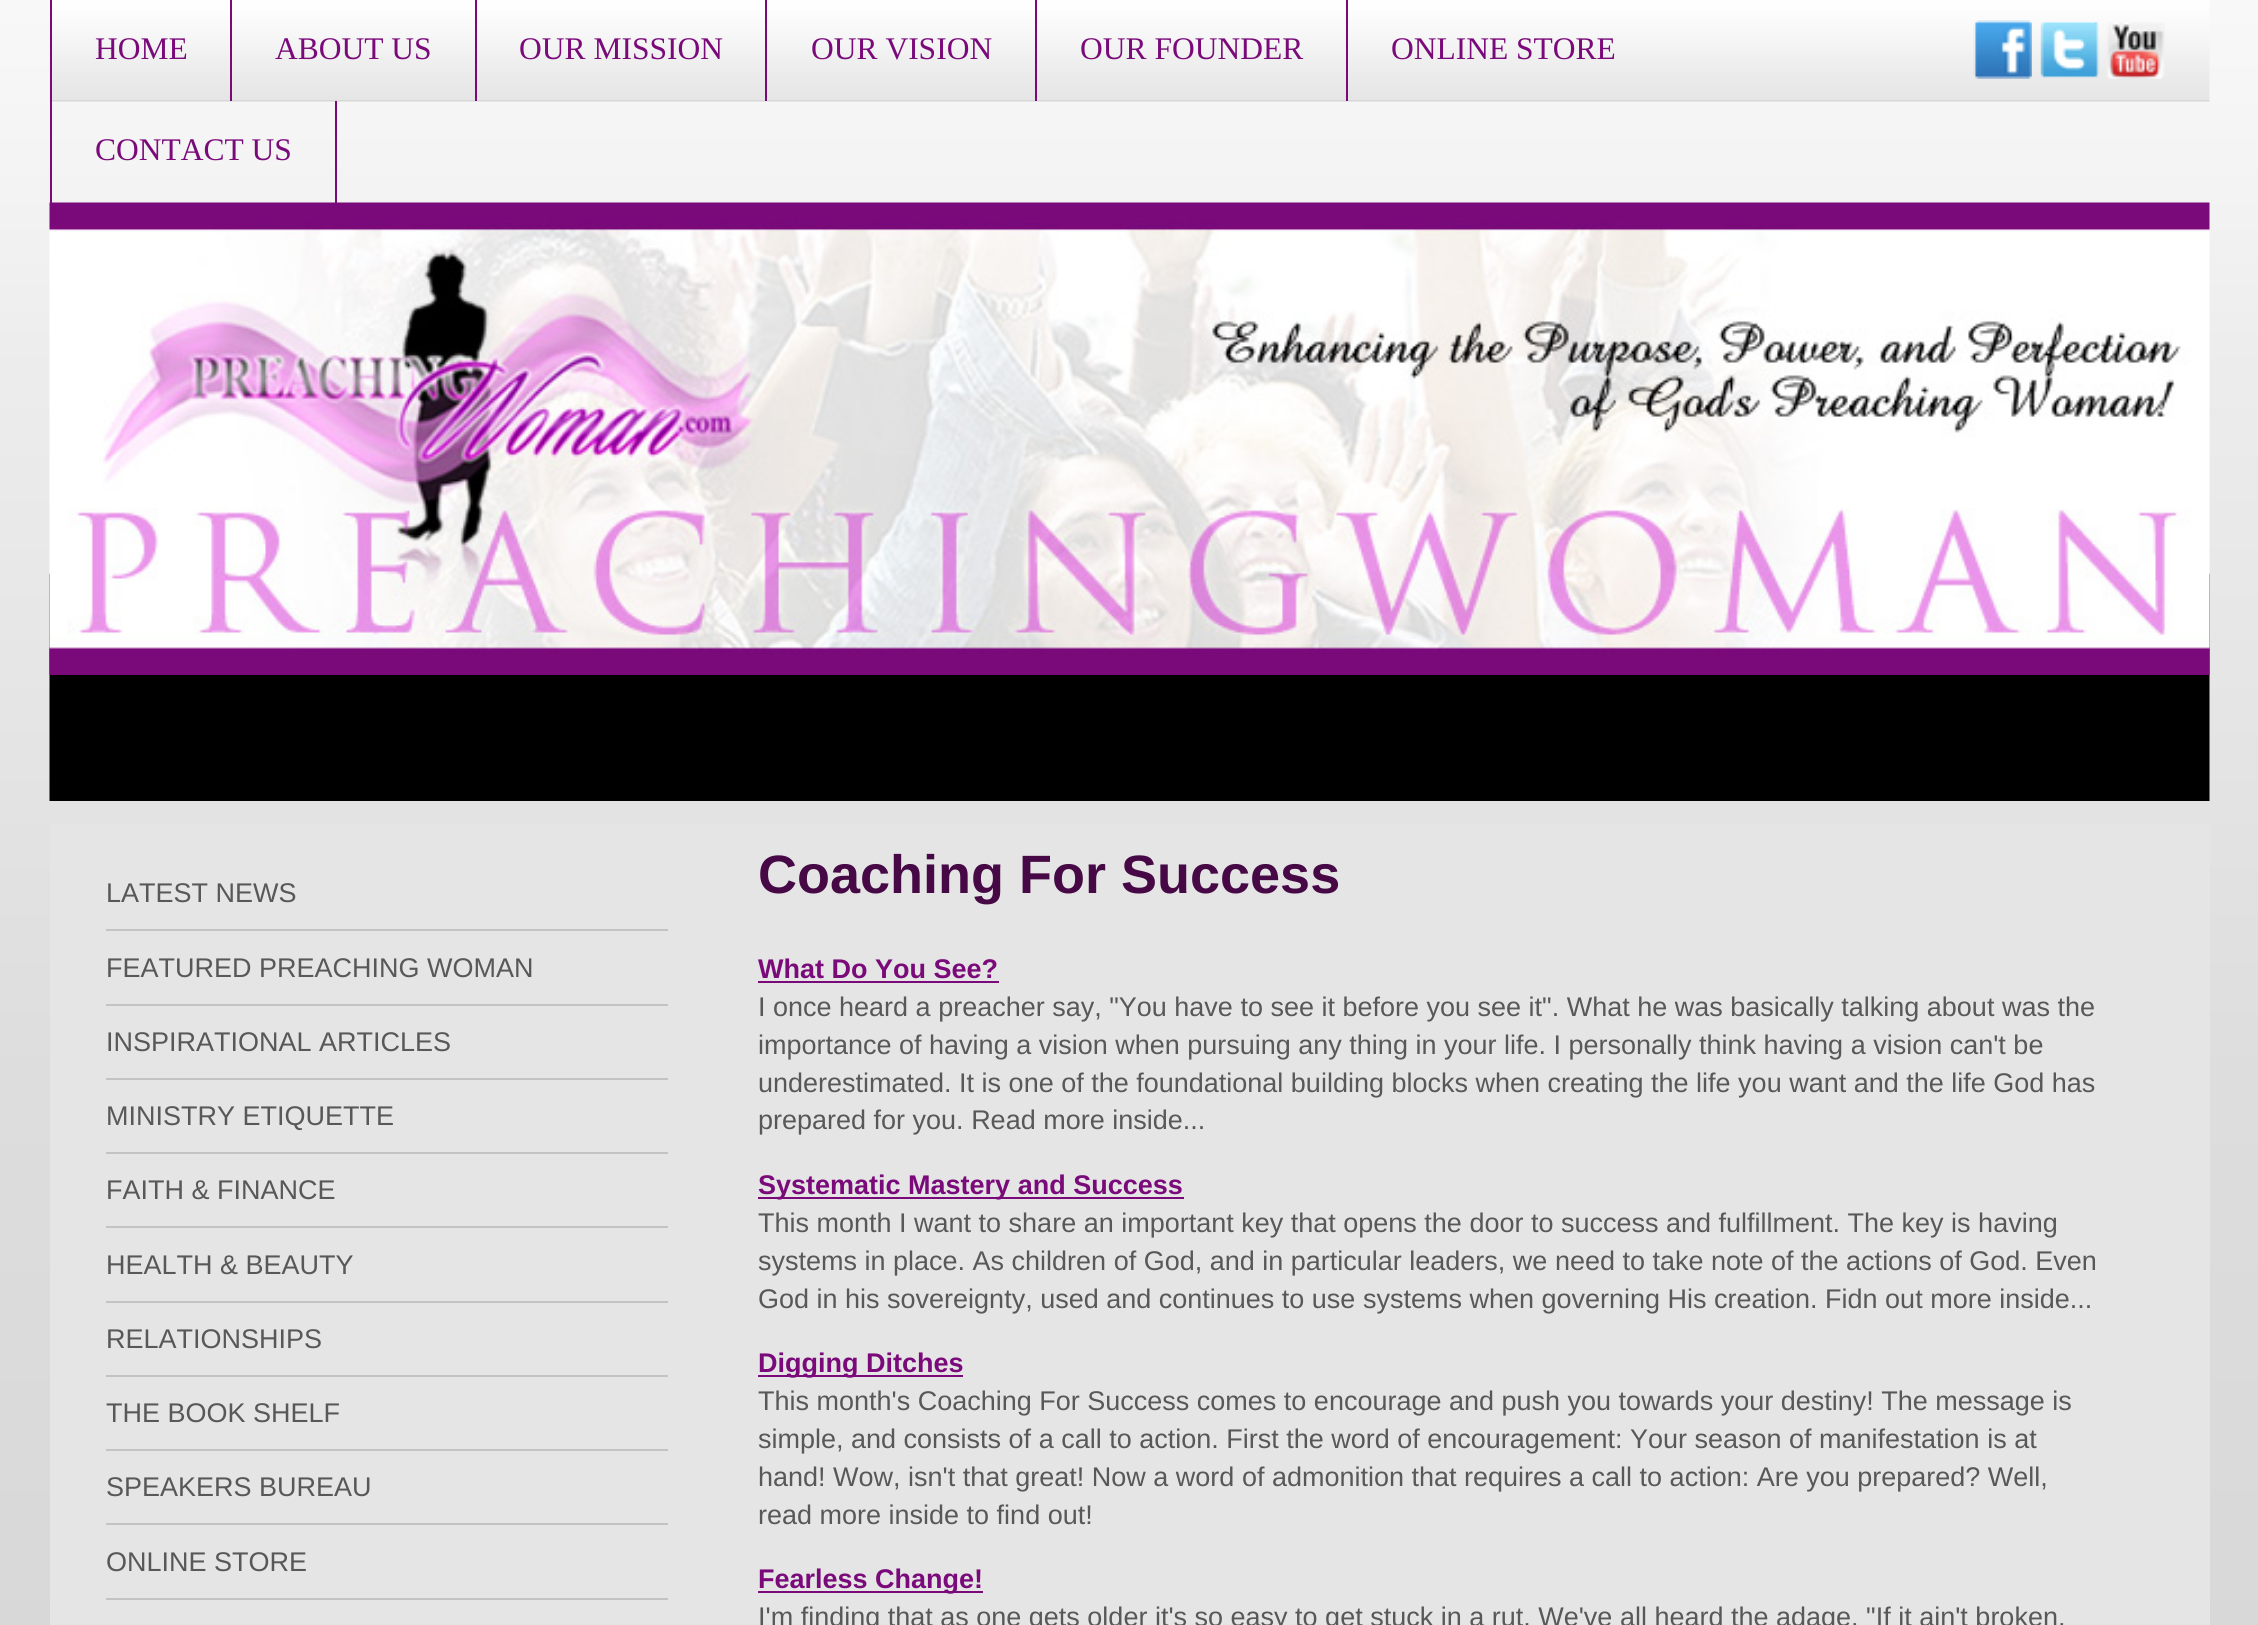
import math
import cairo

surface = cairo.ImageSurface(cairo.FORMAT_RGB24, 2258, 1625)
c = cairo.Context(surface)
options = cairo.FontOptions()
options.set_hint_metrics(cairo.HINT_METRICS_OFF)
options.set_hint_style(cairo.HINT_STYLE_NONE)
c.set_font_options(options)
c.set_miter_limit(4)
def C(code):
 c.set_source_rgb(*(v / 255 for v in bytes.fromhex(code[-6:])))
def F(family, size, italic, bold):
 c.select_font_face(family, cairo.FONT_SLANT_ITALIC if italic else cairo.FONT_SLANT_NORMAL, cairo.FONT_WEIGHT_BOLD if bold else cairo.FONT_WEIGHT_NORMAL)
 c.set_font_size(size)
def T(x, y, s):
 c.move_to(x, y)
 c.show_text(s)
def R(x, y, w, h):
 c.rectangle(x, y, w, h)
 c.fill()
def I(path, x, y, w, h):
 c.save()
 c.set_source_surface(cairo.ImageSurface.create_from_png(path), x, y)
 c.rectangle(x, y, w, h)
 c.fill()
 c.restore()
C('ffffff')
c.paint()
I('1.png',0,0,2258,1625)
I('2.png',49,0,2161,102)
I('7.png',49,573,2161,228)
I('6.png',49,202,2161,473)
C('7a0a7a')
R(50,0,2,203)
F('Liberation Serif',31.5,0,0)
T(95,59,'HOME')
R(230,0,2,101)
T(275,59,'ABOUT US')
R(475,0,2,101)
T(519,59,'OUR MISSION')
R(765,0,2,101)
T(811,59,'OUR VISION')
R(1035,0,2,101)
T(1080,59,'OUR FOUNDER')
R(1346,0,2,101)
T(1391,59,'ONLINE STORE')
R(335,101,2,102)
T(95,160,'CONTACT US')
I('3.png',1973,20,59,59)
I('4.png',2040,21,60,57)
I('5.png',2106,22,59,57)
C('e5e5e5')
R(50,824,2160,801)
F('Liberation Sans',27,0,0)
C('585858')
T(106,902,'LATEST NEWS')
C('c3c3c3')
R(106,929,562,2)
C('585858')
T(106,977,'FEATURED PREACHING WOMAN')
C('c3c3c3')
R(106,1004,562,2)
C('585858')
T(106,1051,'INSPIRATIONAL ARTICLES')
C('c3c3c3')
R(106,1078,562,2)
C('585858')
T(106,1125,'MINISTRY ETIQUETTE')
C('c3c3c3')
R(106,1152,562,2)
C('585858')
T(106,1199,'FAITH & FINANCE')
C('c3c3c3')
R(106,1226,562,2)
C('585858')
T(106,1274,'HEALTH & BEAUTY')
C('c3c3c3')
R(106,1301,562,2)
C('585858')
T(106,1348,'RELATIONSHIPS')
C('c3c3c3')
R(106,1375,562,2)
C('585858')
T(106,1422,'THE BOOK SHELF')
C('c3c3c3')
R(106,1449,562,2)
C('585858')
T(106,1496,'SPEAKERS BUREAU')
C('c3c3c3')
R(106,1523,562,2)
C('585858')
T(106,1571,'ONLINE STORE')
C('c3c3c3')
R(106,1598,562,2)
F('Liberation Sans',54,0,1)
C('460946')
T(758,893,'Coaching For Success')
F('Liberation Sans',27,0,1)
C('7a0a7a')
T(758,978,'What Do You See?')
R(758,981,241,2)
F('Liberation Sans',27,0,0)
C('585858')
T(758,1016,'I once heard a preacher say, "You have to see it before you see it". What he was basically talking about was the')
T(758,1054,'importance of having a vision when pursuing any thing in your life. I personally think having a vision can\'t be')
T(758,1092,'underestimated. It is one of the foundational building blocks when creating the life you want and the life God has')
T(758,1129,'prepared for you. Read more inside...')
C('7a0a7a')
R(758,1197,426,2)
F('Liberation Sans',27,0,1)
T(758,1194,'Systematic Mastery and Success')
F('Liberation Sans',27,0,0)
C('585858')
T(758,1232,'This month I want to share an important key that opens the door to success and fulfillment. The key is having')
T(758,1270,'systems in place. As children of God, and in particular leaders, we need to take note of the actions of God. Even')
T(758,1308,'God in his sovereignty, used and continues to use systems when governing His creation. Fidn out more inside...')
C('7a0a7a')
R(758,1375,205,2)
F('Liberation Sans',27,0,1)
T(758,1372,'Digging Ditches')
F('Liberation Sans',27,0,0)
C('585858')
T(758,1410,'This month\'s Coaching For Success comes to encourage and push you towards your destiny! The message is')
T(758,1448,'simple, and consists of a call to action. First the word of encouragement: Your season of manifestation is at')
T(758,1486,'hand! Wow, isn\'t that great! Now a word of admonition that requires a call to action: Are you prepared? Well,')
T(758,1524,'read more inside to find out!')
C('7a0a7a')
R(758,1591,225,2)
F('Liberation Sans',27,0,1)
T(758,1588,'Fearless Change!')
F('Liberation Sans',27,0,0)
C('585858')
T(758,1626,'I\'m finding that as one gets older it\'s so easy to get stuck in a rut. We\'ve all heard the adage, "If it ain\'t broken,')
surface.write_to_png('o.png')
